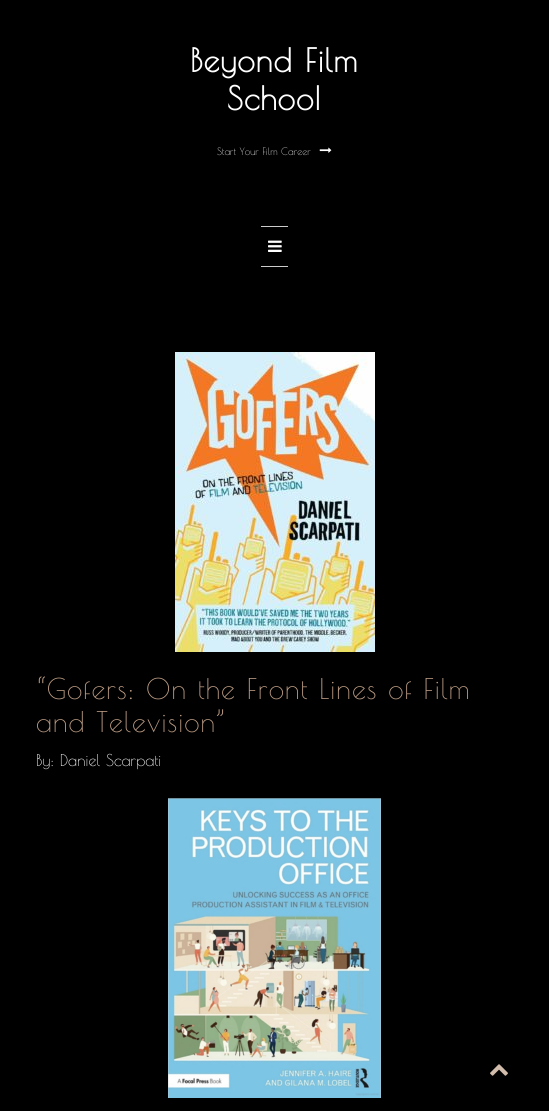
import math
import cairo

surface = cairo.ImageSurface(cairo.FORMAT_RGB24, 549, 1111)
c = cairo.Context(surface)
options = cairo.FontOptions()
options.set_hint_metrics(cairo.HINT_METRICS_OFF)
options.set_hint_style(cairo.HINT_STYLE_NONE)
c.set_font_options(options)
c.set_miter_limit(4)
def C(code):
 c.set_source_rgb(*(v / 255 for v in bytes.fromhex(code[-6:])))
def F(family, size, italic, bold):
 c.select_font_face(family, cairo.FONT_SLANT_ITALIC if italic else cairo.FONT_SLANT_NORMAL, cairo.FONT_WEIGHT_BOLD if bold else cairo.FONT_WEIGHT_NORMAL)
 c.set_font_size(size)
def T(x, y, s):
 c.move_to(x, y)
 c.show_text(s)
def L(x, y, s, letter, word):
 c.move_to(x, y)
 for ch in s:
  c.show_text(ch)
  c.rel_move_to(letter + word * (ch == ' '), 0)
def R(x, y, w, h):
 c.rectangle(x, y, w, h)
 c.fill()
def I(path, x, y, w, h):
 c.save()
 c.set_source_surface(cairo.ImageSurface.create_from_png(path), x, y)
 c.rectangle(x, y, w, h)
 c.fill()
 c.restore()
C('000000')
c.paint()
F('Poiret One',32,0,1)
C('ffffff')
L(190,72,'Beyond Film',1,0)
L(227,110,'Schoo|',1,0)
F('Poiret One',10,0,0)
T(217,155,'Start Your Film Career')
I('1.png',319,147,13,6)
C('cccccc')
R(261,226,27,1)
R(261,266,27,1)
I('2.png',268,240,14,12)
I('3.png',175,352,200,300)
F('Poiret One',28,0,0)
C('bb9b83')
L(36,699,'“Gofers: On the Front Lines of Film',1,0)
L(36,732,'and Television”',1,0)
F('Poiret One',16,0,0)
C('ffffff')
T(36,766,'By: Daniel Scarpati')
I('4.png',168,798,213,300)
I('5.png',490,1064,18,12)
surface.write_to_png('o.png')
